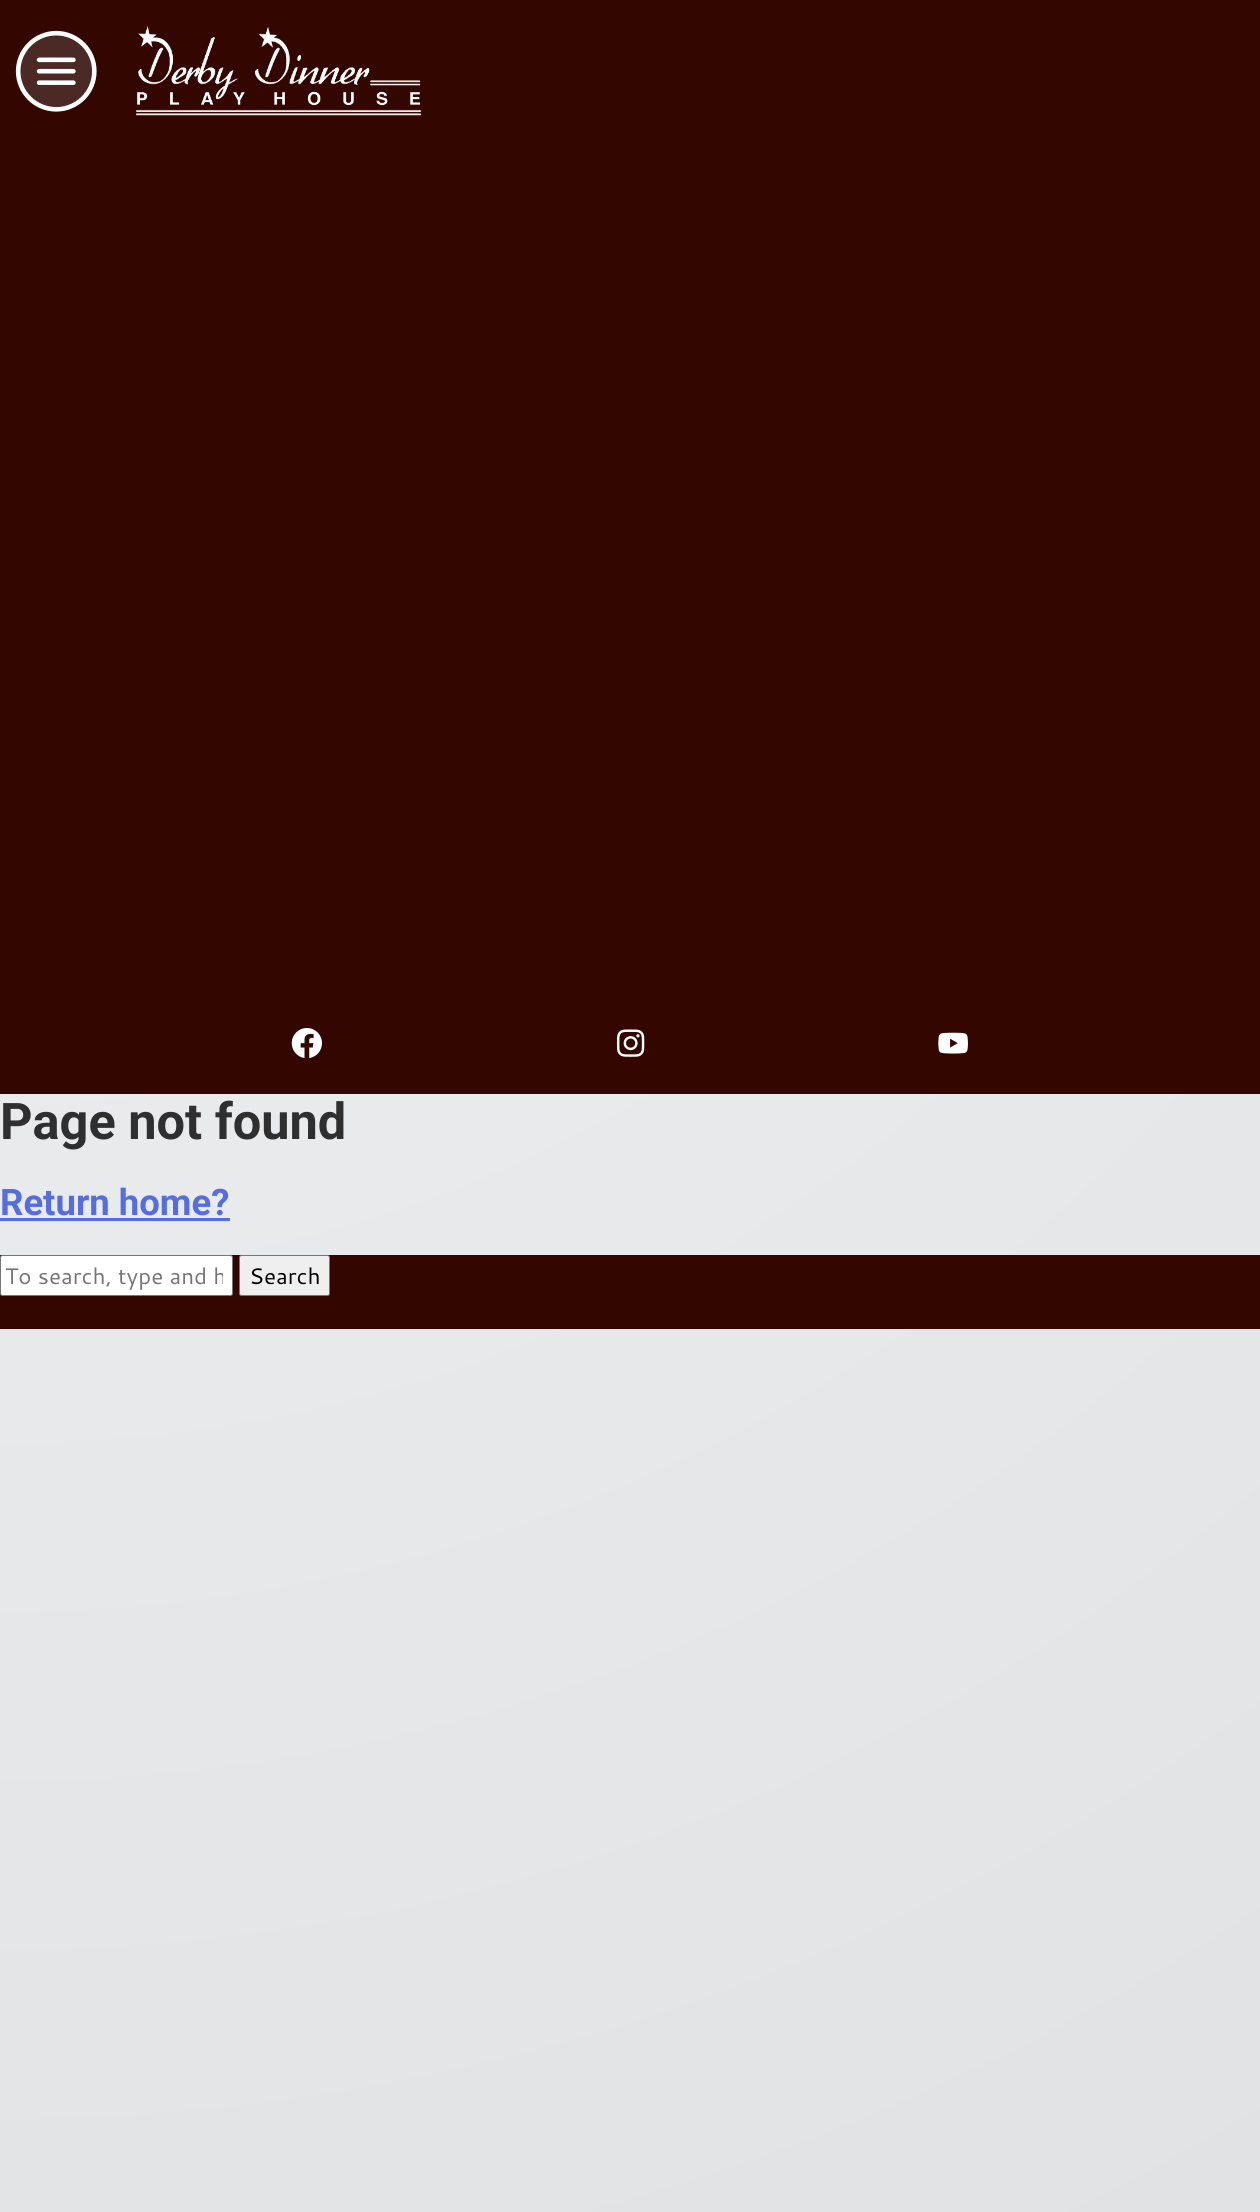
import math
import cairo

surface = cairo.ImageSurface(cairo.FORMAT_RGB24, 1260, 2212)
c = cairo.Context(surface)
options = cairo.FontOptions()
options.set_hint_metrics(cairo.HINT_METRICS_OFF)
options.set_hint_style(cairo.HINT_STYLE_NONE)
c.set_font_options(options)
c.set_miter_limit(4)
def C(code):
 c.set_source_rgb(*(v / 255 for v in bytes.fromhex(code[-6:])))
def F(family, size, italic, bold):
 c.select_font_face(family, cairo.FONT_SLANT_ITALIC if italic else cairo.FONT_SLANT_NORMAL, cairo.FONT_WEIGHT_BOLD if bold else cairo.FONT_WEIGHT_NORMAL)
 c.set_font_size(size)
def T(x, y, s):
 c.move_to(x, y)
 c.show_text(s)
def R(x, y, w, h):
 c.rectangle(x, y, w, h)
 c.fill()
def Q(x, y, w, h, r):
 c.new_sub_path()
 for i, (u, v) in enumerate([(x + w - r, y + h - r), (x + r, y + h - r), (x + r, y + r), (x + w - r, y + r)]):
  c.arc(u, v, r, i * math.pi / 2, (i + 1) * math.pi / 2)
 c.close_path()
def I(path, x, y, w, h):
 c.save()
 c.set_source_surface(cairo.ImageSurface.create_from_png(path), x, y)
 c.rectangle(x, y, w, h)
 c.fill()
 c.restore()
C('ffffff')
c.paint()
gradient = cairo.RadialGradient(0,11,0,0,11,2542)
gradient.add_color_stop_rgba(0,0.945,0.945,0.949,1)
gradient.add_color_stop_rgba(1,0.878,0.886,0.894,1)
c.set_source(gradient)
R(0,1094,1260,1118)
C('330600')
R(0,0,1260,1094)
I('1.png',15,30,82,82)
I('2.png',136,26,286,90)
I('3.png',291,1028,31,30)
I('4.png',616,1029,29,28)
I('5.png',938,1032,30,22)
F('Roboto',50.5,0,1)
C('2f2f2f')
T(0,1139,'Page not found')
F('Roboto',36.5,0,1)
C('546de5')
T(0,1215,'Return home?')
R(0,1218,230,3)
C('330600')
R(0,1255,1260,74)
C('ffffff')
Q(.5,1255.5,232,40,2)
c.fill_preserve()
C('767676')
c.set_line_width(1)
c.stroke()
c.save()
c.rectangle(5,1259,218,32)
c.clip()
F('Cantarell',22.5,0,0)
C('757575')
T(5,1284,'To search, type and h')
c.restore()
C('efefef')
Q(239.5,1255.5,90,40,2)
c.fill_preserve()
C('767676')
c.stroke()
F('Cantarell',22.5,0,0)
C('000000')
T(249,1284,'Search')
surface.write_to_png('o.png')
